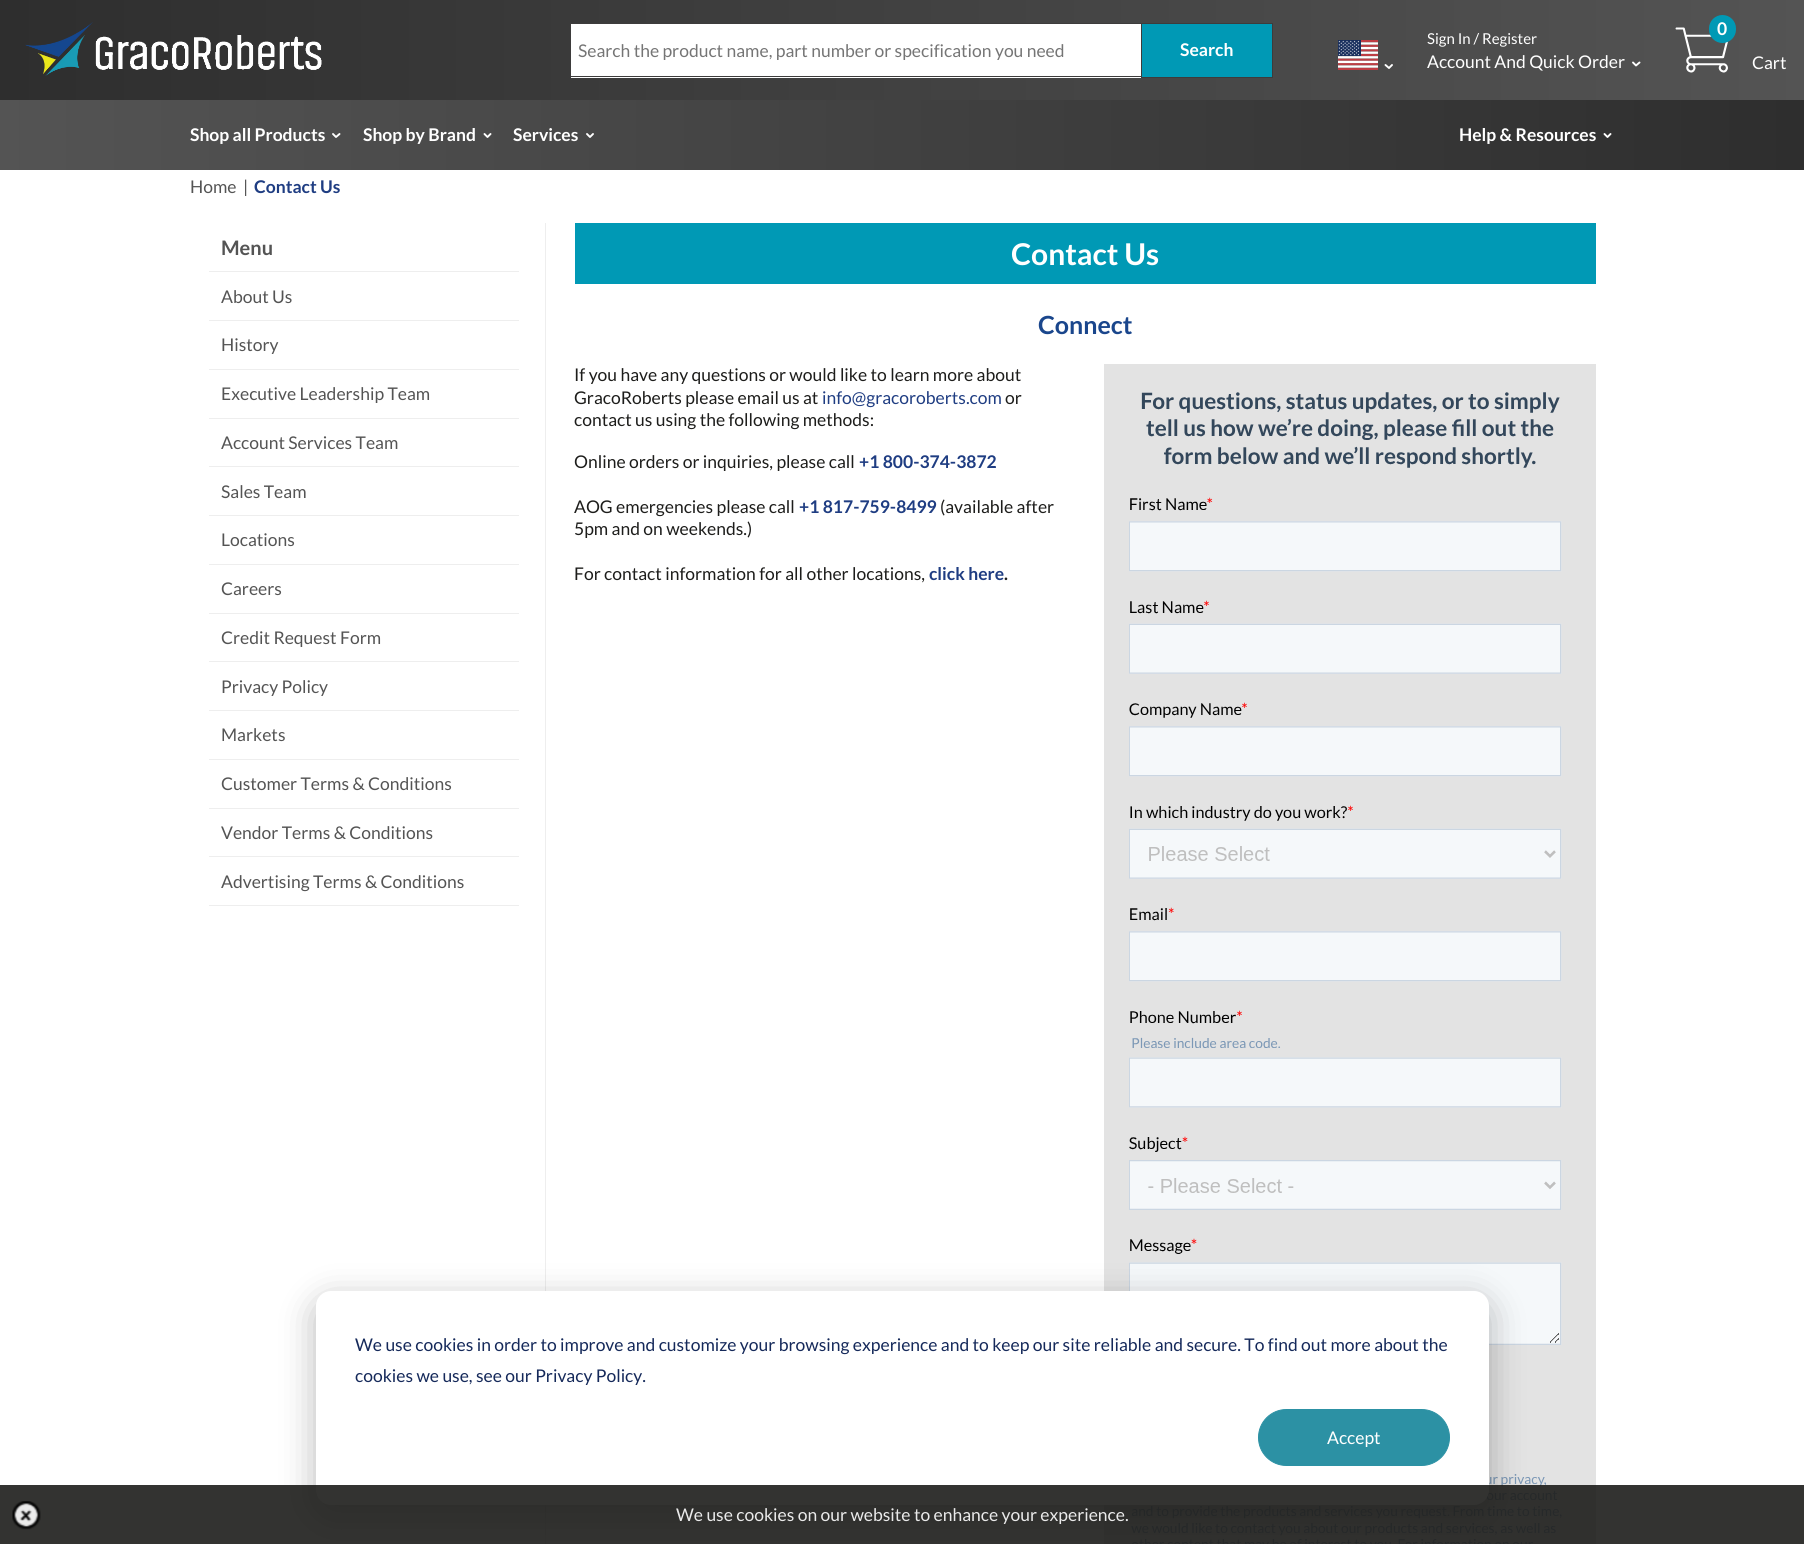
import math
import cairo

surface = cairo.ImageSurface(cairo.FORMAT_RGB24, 1804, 1544)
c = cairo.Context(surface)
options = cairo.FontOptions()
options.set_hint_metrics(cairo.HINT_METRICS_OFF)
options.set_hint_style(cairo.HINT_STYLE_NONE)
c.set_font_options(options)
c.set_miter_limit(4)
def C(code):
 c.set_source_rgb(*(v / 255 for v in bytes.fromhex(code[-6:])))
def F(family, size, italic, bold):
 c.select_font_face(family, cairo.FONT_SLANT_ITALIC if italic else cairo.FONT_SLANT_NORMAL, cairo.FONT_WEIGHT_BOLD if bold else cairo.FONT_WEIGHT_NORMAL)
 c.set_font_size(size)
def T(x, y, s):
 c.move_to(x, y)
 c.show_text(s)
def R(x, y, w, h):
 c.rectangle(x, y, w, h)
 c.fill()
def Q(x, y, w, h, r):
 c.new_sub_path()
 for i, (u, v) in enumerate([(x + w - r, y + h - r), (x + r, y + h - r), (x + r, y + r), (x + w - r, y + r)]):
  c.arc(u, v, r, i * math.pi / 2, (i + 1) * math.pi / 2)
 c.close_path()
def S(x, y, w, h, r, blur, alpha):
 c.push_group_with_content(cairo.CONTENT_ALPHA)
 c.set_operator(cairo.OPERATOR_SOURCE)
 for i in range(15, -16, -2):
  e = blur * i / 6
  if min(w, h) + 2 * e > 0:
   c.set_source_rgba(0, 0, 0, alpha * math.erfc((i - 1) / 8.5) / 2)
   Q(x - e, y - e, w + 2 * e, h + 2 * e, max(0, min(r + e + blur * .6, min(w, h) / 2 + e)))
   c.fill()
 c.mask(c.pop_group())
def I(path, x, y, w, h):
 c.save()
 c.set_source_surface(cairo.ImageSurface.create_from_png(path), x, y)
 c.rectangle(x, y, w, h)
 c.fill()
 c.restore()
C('ffffff')
c.paint()
gradient = cairo.LinearGradient(0,50,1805,50)
gradient.add_color_stop_rgba(0,0.18,0.18,0.18,1)
gradient.add_color_stop_rgba(1,0.329,0.329,0.329,1)
c.set_source(gradient)
R(0,0,1804,100)
I('1.png',25,22,297,54)
C('ffffff')
R(571,24,570,54)
C('3d3c3c')
R(570,23,571,1)
R(570,76,571,1)
R(570,23,1,55)
F('Lato',17.5,0,0)
C('757575')
T(578,57,'Search the product name, part number or specification you need')
C('0099b5')
c.rectangle(1141.5,23.5,131,54)
c.fill_preserve()
C('3d3c3c')
c.set_line_width(1)
c.stroke()
F('Lato',17.5,0,1)
C('ffffff')
T(1180,56,'Search')
I('2.png',1338,40,40,30)
c.new_path()
c.move_to(1385.5,65)
c.line_to(1389,68)
c.line_to(1392,65)
c.set_line_width(1.9)
c.set_line_cap(cairo.LINE_CAP_ROUND)
c.set_line_join(cairo.LINE_JOIN_ROUND)
c.stroke()
F('Lato',15,0,0)
T(1427,44,'Sign In / Register')
F('Lato',17.5,0,0)
T(1427,68,'Account And Quick Order')
c.new_path()
c.move_to(1633,62.5)
c.line_to(1636,65.5)
c.line_to(1639.5,62.5)
c.stroke()
I('3.png',1675,27,54,46)
C('0099b5')
Q(1709,15,27,28,13.5)
c.fill()
F('Lato',17.5,0,1)
C('ffffff')
T(1717,35,'0')
F('Lato',17.5,0,0)
T(1752,69,'Cart')
gradient = cairo.LinearGradient(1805,135,0,135)
gradient.add_color_stop_rgba(0,0.18,0.18,0.18,1)
gradient.add_color_stop_rgba(1,0.329,0.329,0.329,1)
c.set_source(gradient)
R(0,100,1804,70)
F('Lato',17.5,0,1)
C('ffffff')
T(190,141,'Shop all Products')
c.new_path()
c.move_to(333,134)
c.line_to(336,137)
c.line_to(339.5,134)
c.stroke()
T(363,141,'Shop by Brand')
c.new_path()
c.move_to(484.5,134)
c.line_to(487.5,137)
c.line_to(490.5,134)
c.stroke()
T(513,141,'Services')
c.new_path()
c.move_to(587,134)
c.line_to(590,137)
c.line_to(593,134)
c.stroke()
T(1459,141,'Help & Resources')
c.new_path()
c.move_to(1604.5,134)
c.line_to(1607.5,137)
c.line_to(1610.5,134)
c.stroke()
F('Lato',17.5,0,0)
C('545454')
T(190,193,'Home')
T(243,193,'|')
F('Lato',17.5,0,1)
C('1f3d82')
T(254,193,'Contact Us')
F('Lato',20,0,1)
C('545454')
T(221,255,'Menu')
C('eeeeee')
R(209,271,310,1)
F('Lato',17.5,0,0)
C('545454')
T(221,303,'About Us')
C('eeeeee')
R(209,320,310,1)
C('545454')
T(221,351,'History')
C('eeeeee')
R(209,369,310,1)
C('545454')
T(221,400,'Executive Leadership Team')
C('eeeeee')
R(209,418,310,1)
C('545454')
T(221,449,'Account Services Team')
C('eeeeee')
R(209,466,310,1)
C('545454')
T(221,498,'Sales Team')
C('eeeeee')
R(209,515,310,1)
C('545454')
T(221,546,'Locations')
C('eeeeee')
R(209,564,310,1)
C('545454')
T(221,595,'Careers')
C('eeeeee')
R(209,613,310,1)
C('545454')
T(221,644,'Credit Request Form')
C('eeeeee')
R(209,661,310,1)
C('545454')
T(221,693,'Privacy Policy')
C('eeeeee')
R(209,710,310,1)
C('545454')
T(221,741,'Markets')
C('eeeeee')
R(209,759,310,1)
C('545454')
T(221,790,'Customer Terms & Conditions')
C('eeeeee')
R(209,808,310,1)
C('545454')
T(221,839,'Vendor Terms & Conditions')
C('eeeeee')
R(209,905,310,1)
R(209,856,310,1)
C('545454')
T(221,888,'Advertising Terms & Conditions')
C('eeeeee')
R(545,223,1,1321)
C('0099b5')
R(575,223,1021,61)
F('Lato',30,0,1)
C('ffffff')
T(1011,265,'Contact Us')
F('Lato',25,0,1)
C('1a468c')
T(1038,334,'Connect')
F('Lato',17.5,0,0)
C('1d1d1b')
T(574,381,'If you have any questions or would like to learn more about')
T(574,404,'GracoRoberts please email us at')
C('1f3d82')
T(822,404,'info@gracoroberts.com')
C('1d1d1b')
T(1005,404,'or')
T(574,426,'contact us using the following methods:')
T(574,468,'Online orders or inquiries, please call')
F('Lato',17.5,0,1)
C('1f3d82')
T(859,468,'+1 800-374-3872')
F('Lato',17.5,0,0)
C('1d1d1b')
T(574,513,'AOG emergencies please call')
F('Lato',17.5,0,1)
C('1f3d82')
T(799,513,'+1 817-759-8499')
F('Lato',17.5,0,0)
C('1d1d1b')
T(940,513,'(available after')
T(574,535,'5pm and on weekends.)')
T(574,580,'For contact information for all other locations,')
F('Lato',17.5,0,1)
C('1f3d82')
T(929,580,'click here')
C('1d1d1b')
T(1004,580,'.')
C('e3e3e3')
R(1104,364,492,1180)
I('4.png',1129,392,433,1152)
C('000000')
S(316,1301,1173,214,15,17.5,.28)
C('ffffff')
Q(316,1291,1173,214,15)
c.fill()
c.set_source_rgba(0.114,0.114,0.106,0.9)
R(0,1485,1804,59)
I('5.png',12,1501,29,29)
F('Lato',17.5,0,0)
C('eaeaea')
T(676,1521,'We use cookies on our website to enhance your experience.')
C('15295a')
T(355,1351,'We use cookies in order to improve and customize your browsing experience and to keep our site reliable and secure. To find out more about the')
T(355,1382,'cookies we use, see our Privacy Policy.')
C('2c91a4')
Q(1258.5,1409.5,191,56,28)
c.fill_preserve()
c.set_line_width(1)
c.set_line_cap(cairo.LINE_CAP_BUTT)
c.set_line_join(cairo.LINE_JOIN_MITER)
c.stroke()
C('ffffff')
T(1327,1444,'Accept')
surface.write_to_png('o.png')
